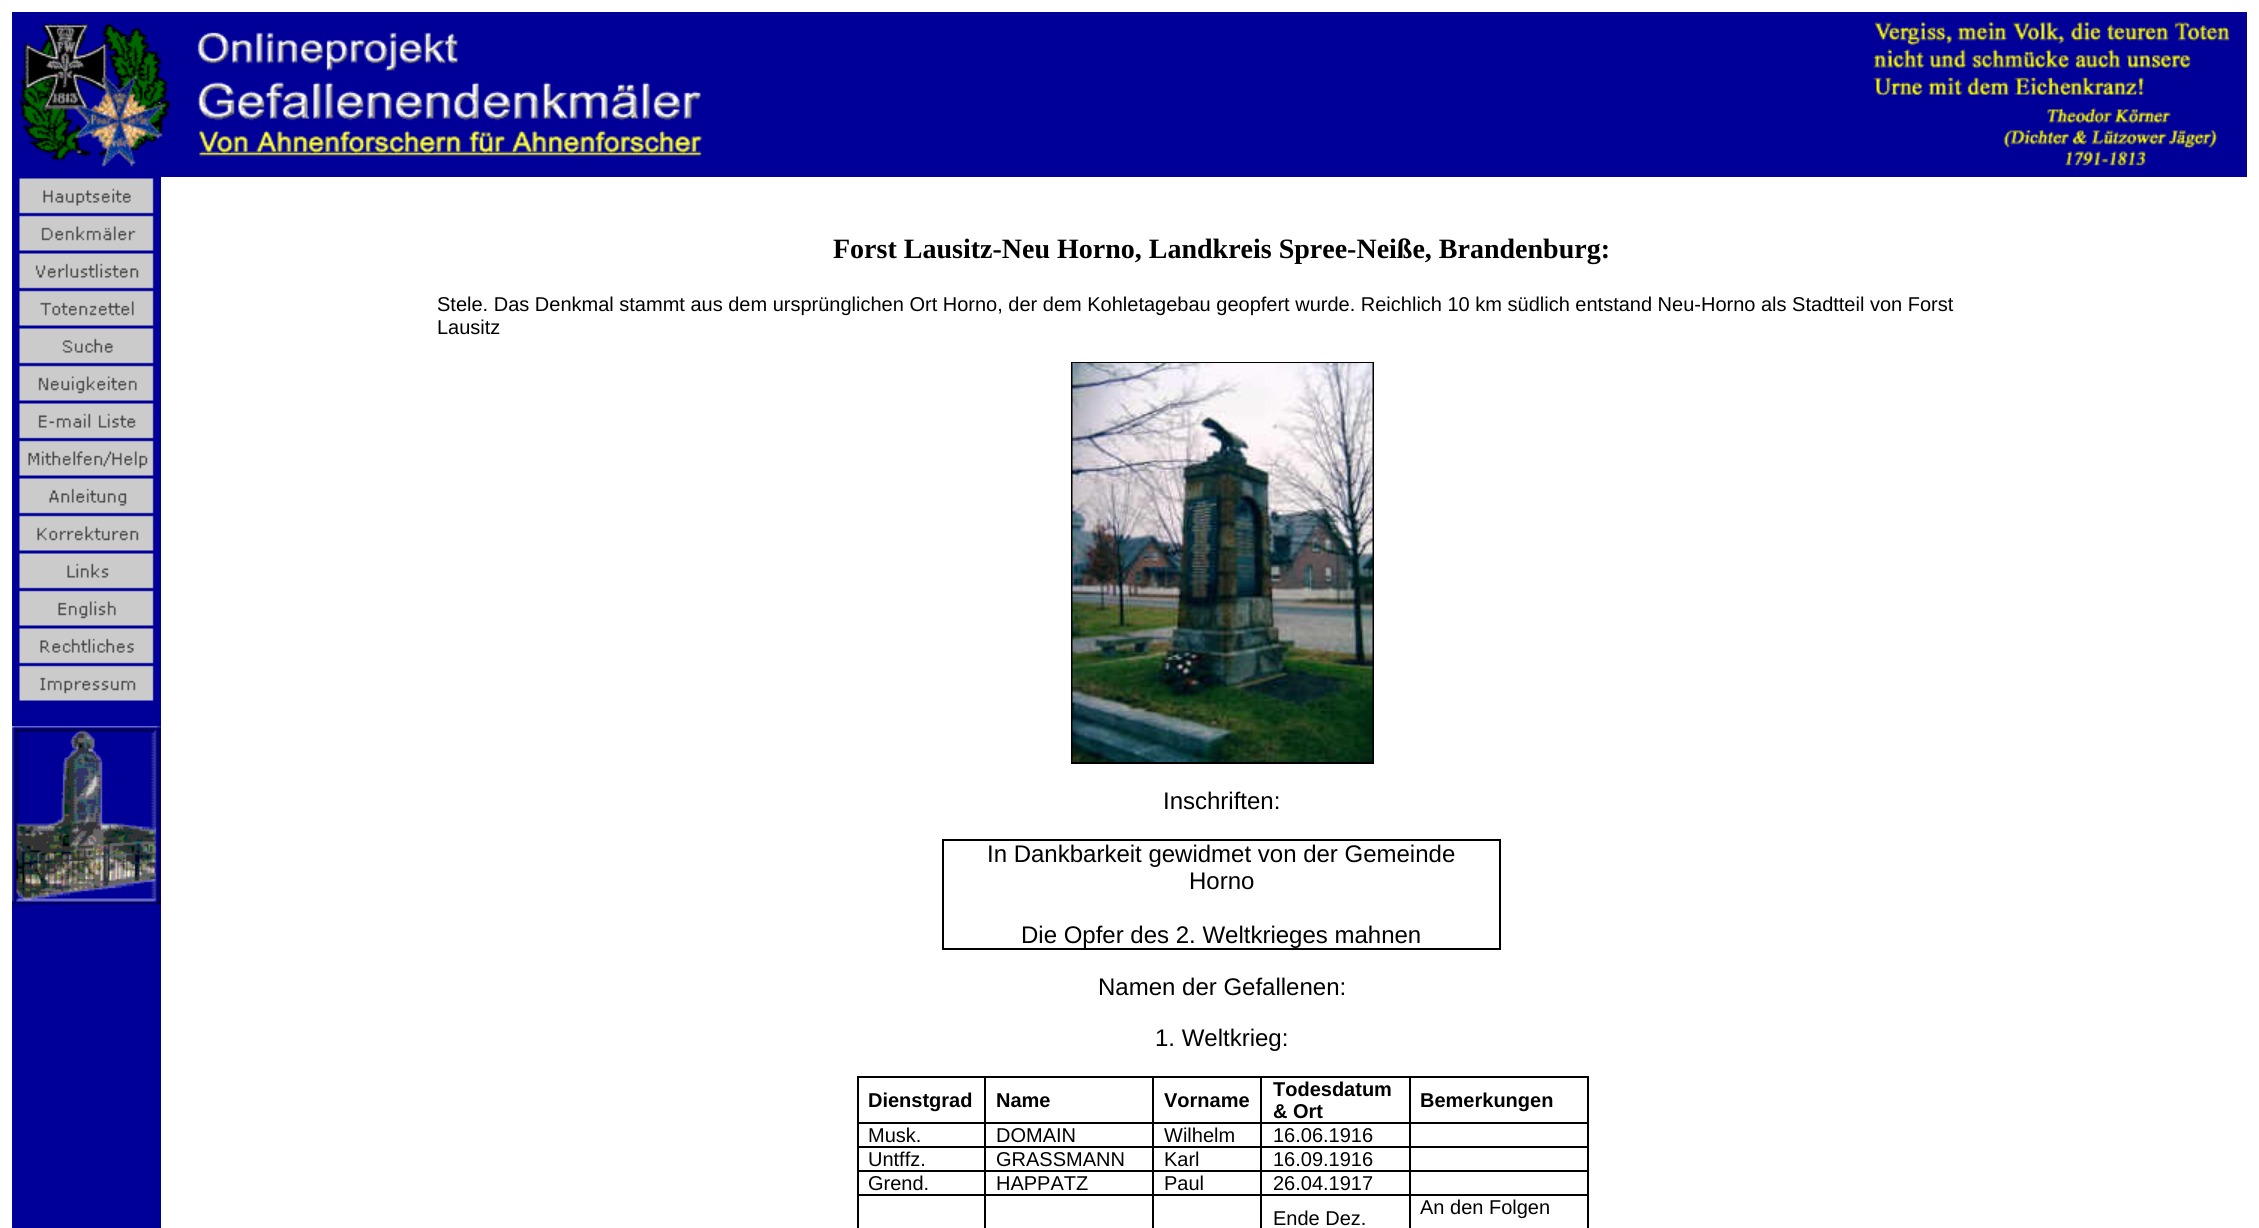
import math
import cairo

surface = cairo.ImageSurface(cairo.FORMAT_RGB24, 2259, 1228)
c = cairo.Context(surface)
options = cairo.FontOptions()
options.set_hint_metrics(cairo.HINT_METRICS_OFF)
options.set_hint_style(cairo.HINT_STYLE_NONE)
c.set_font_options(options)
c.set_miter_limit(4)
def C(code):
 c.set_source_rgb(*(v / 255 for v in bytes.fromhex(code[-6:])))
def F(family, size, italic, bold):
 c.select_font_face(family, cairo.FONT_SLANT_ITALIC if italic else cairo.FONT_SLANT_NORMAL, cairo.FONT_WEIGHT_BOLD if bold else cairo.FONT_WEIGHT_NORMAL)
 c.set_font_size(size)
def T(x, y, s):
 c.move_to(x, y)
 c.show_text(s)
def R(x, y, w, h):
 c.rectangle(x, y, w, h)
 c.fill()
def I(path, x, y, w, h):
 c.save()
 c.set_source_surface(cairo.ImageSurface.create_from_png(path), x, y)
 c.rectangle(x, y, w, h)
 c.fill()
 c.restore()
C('ffffff')
c.paint()
C('000099')
R(12,12,2235,165)
I('1.png',19,23,151,144)
I('2.png',197,32,506,125)
I('3.png',1873,22,357,144)
R(12,177,149,1051)
I('4.png',19,178,135,36)
I('5.png',19,215,135,36)
I('6.png',19,253,135,36)
I('7.png',19,290,135,36)
I('8.png',19,328,135,36)
I('9.png',19,365,135,36)
I('10.png',19,403,135,36)
I('11.png',19,440,135,36)
I('12.png',19,478,135,36)
I('13.png',19,515,135,36)
I('14.png',19,553,135,36)
I('15.png',19,590,135,36)
I('16.png',19,628,135,36)
I('17.png',19,665,135,36)
I('18.png',12,726,149,179)
F('Liberation Serif',28,0,1)
C('000000')
T(833,258,'Forst Lausitz-Neu Horno, Landkreis Spree-Neiße, Brandenburg:')
F('Liberation Sans',20,0,0)
T(437,311,'Stele. Das Denkmal stammt aus dem ursprünglichen Ort Horno, der dem Kohletagebau geopfert wurde. Reichlich 10 km südlich entstand Neu-Horno als Stadtteil von Forst')
T(437,334,'Lausitz')
c.rectangle(1072,363,301,400)
c.stroke()
I('19.png',1072,363,301,399)
F('Liberation Sans',24,0,0)
T(1163,809,'Inschriften:')
R(942,839,558,2)
R(1499,839,2,111)
R(942,948,558,2)
R(942,839,2,111)
T(987,862,'In Dankbarkeit gewidmet von der Gemeinde')
T(1189,889,'Horno')
T(1021,943,'Die Opfer des 2. Weltkrieges mahnen')
T(1098,995,'Namen der Gefallenen:')
T(1155,1046,'1. Weltkrieg:')
R(857,1076,732,2)
R(1587,1122,2,106)
R(1587,1076,2,48)
R(1409,1194,2,34)
R(1409,1194,180,2)
R(1409,1170,2,26)
R(1409,1170,180,2)
R(1409,1146,2,26)
R(1409,1146,180,2)
R(1409,1122,2,26)
R(1409,1122,180,2)
R(1409,1076,2,48)
R(1260,1194,2,34)
R(1260,1194,150,2)
R(1260,1170,2,26)
R(1260,1170,150,2)
R(1260,1146,2,26)
R(1260,1146,150,2)
R(1260,1122,2,26)
R(1260,1122,150,2)
R(1260,1076,2,48)
R(1152,1194,2,34)
R(1152,1194,110,2)
R(1152,1170,2,26)
R(1152,1170,110,2)
R(1152,1146,2,26)
R(1152,1146,110,2)
R(1152,1122,2,26)
R(1152,1122,110,2)
R(1152,1076,2,48)
R(984,1194,2,34)
R(984,1194,170,2)
R(984,1170,2,26)
R(984,1170,170,2)
R(984,1146,2,26)
R(984,1146,170,2)
R(984,1122,2,26)
R(984,1122,170,2)
R(984,1076,2,48)
R(857,1194,2,34)
R(857,1194,129,2)
R(857,1170,2,26)
R(857,1170,129,2)
R(857,1146,2,26)
R(857,1146,129,2)
R(857,1122,2,26)
R(857,1122,129,2)
R(857,1076,2,48)
F('Liberation Sans',20,0,1)
T(868,1107,'Dienstgrad')
T(996,1107,'Name')
T(1164,1107,'Vorname')
T(1273,1096,'Todesdatum')
T(1273,1118,'& Ort')
T(1420,1107,'Bemerkungen')
F('Liberation Sans',20,0,0)
T(868,1142,'Musk.')
T(996,1142,'DOMAIN')
T(1164,1142,'Wilhelm')
T(1273,1142,'16.06.1916')
T(868,1166,'Untffz.')
T(996,1166,'GRASSMANN')
T(1164,1166,'Karl')
T(1273,1166,'16.09.1916')
T(868,1190,'Grend.')
T(996,1190,'HAPPATZ')
T(1164,1190,'Paul')
T(1273,1190,'26.04.1917')
T(1273,1225,'Ende Dez.')
T(1420,1214,'An den Folgen')
surface.write_to_png('o.png')
